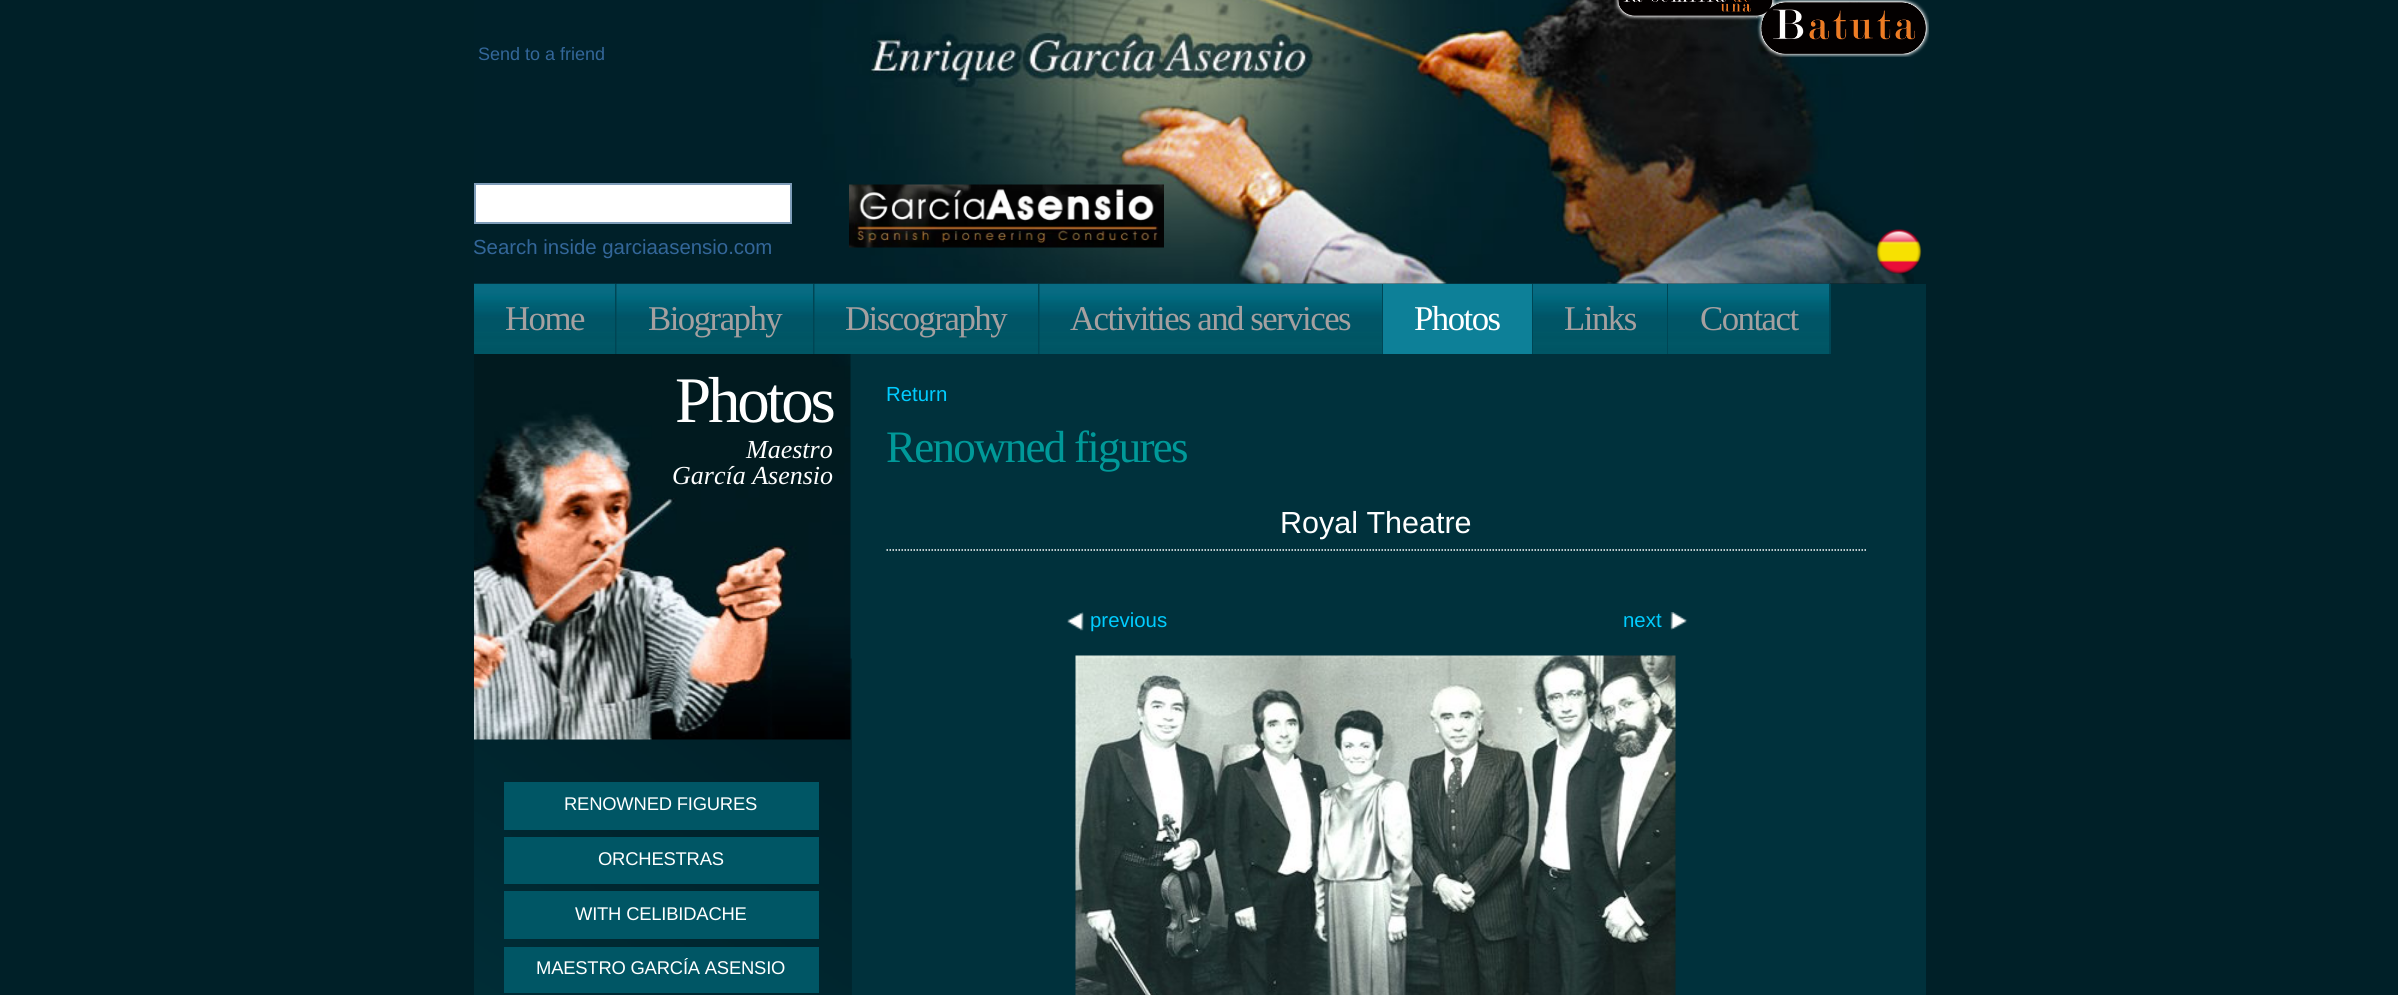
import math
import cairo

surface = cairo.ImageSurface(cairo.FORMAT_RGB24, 2398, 995)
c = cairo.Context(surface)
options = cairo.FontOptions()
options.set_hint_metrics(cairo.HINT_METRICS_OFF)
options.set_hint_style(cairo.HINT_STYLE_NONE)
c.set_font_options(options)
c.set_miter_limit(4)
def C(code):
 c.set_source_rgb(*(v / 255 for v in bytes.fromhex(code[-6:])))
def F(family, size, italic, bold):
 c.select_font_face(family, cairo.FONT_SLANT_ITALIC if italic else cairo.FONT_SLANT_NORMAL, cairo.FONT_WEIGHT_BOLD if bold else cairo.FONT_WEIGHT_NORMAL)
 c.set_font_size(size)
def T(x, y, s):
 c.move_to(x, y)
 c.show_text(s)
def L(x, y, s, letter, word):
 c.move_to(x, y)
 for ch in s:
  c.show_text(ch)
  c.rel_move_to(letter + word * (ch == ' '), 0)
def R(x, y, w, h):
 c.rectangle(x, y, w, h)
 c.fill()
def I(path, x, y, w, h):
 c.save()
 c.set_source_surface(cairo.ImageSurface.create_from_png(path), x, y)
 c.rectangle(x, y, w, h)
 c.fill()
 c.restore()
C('002028')
c.paint()
I('6.png',474,283,143,71)
C('004655')
R(615,284,2,70)
I('7.png',616,283,199,71)
C('00313c')
R(850,284,1076,711)
C('004655')
R(813,284,2,70)
I('8.png',814,283,226,71)
R(1038,284,2,70)
I('9.png',1039,283,344,71)
I('10.png',1383,283,150,1)
I('11.png',1533,283,135,71)
I('12.png',1668,283,162,71)
I('1.png',474,0,1440,284)
F('Liberation Sans',18,0,0)
C('336699')
T(478,60,'Send to a friend')
I('2.png',1614,0,315,57)
C('ffffff')
c.rectangle(475,184,316,39)
c.fill_preserve()
C('7f9db9')
c.stroke()
F('Liberation Sans',20.4,0,0)
C('336699')
T(473,254,'Search inside garciaasensio.com')
I('3.png',849,184,315,64)
I('4.png',1876,229,46,45)
I('5.png',474,658,378,337)
F('Liberation Serif',34.75,0,0)
C('a5a0a0')
L(505,330,'Home',-1.5,0)
L(648,330,'Biography',-1.5,0)
L(845,330,'Discography',-1.5,0)
C('004655')
R(1382,284,1,70)
C('a5a0a0')
L(1070,330,'Activities and services',-1.5,0)
C('0d8098')
R(1383,284,149,70)
C('004655')
R(1532,284,1,70)
C('ffffff')
L(1414,330,'Photos',-1.5,0)
C('004655')
R(1667,284,1,70)
C('a5a0a0')
L(1564,330,'Links',-1.5,0)
C('004655')
R(1829,284,2,70)
C('a5a0a0')
L(1700,330,'Contact',-1.5,0)
I('13.png',474,354,377,386)
F('Liberation Serif',65,0,0)
C('ffffff')
L(675,422,'Photos',-3.25,0)
F('Liberation Serif',26,1,0)
T(746,458,'Maestro')
T(672,484,'García Asensio')
C('005665')
R(504,782,315,48)
F('Liberation Sans',18.4,0,0)
C('ffffff')
L(564,810,'RENOWNED FIGURES',-.2,0)
C('005665')
R(504,837,315,47)
C('ffffff')
L(598,865,'ORCHESTRAS',-.2,0)
C('005665')
R(504,891,315,48)
C('ffffff')
L(575,920,'WITH CELIBIDACHE',-.2,0)
C('005665')
R(504,947,315,46)
C('ffffff')
L(536,974,'MAESTRO GARCÍA ASENSIO',-.2,0)
F('Liberation Sans',20.4,0,0)
C('00ccff')
T(886,401,'Return')
F('Liberation Serif',45,0,0)
C('009999')
L(886,462,'Renowned figures',-1.75,0)
c.new_path()
c.move_to(886.5,550)
c.line_to(1866,550)
C('ffffff')
c.set_line_width(1.5)
c.set_dash([1.5,1.5])
c.stroke()
F('Liberation Sans',30.5,0,0)
T(1280,533,'Royal Theatre')
I('14.png',1067,612,17,19)
F('Liberation Sans',20.4,0,0)
C('00ccff')
T(1090,627,'previous')
T(1623,627,'next')
I('15.png',1670,612,18,18)
I('16.png',1075,655,601,340)
surface.write_to_png('o.png')
